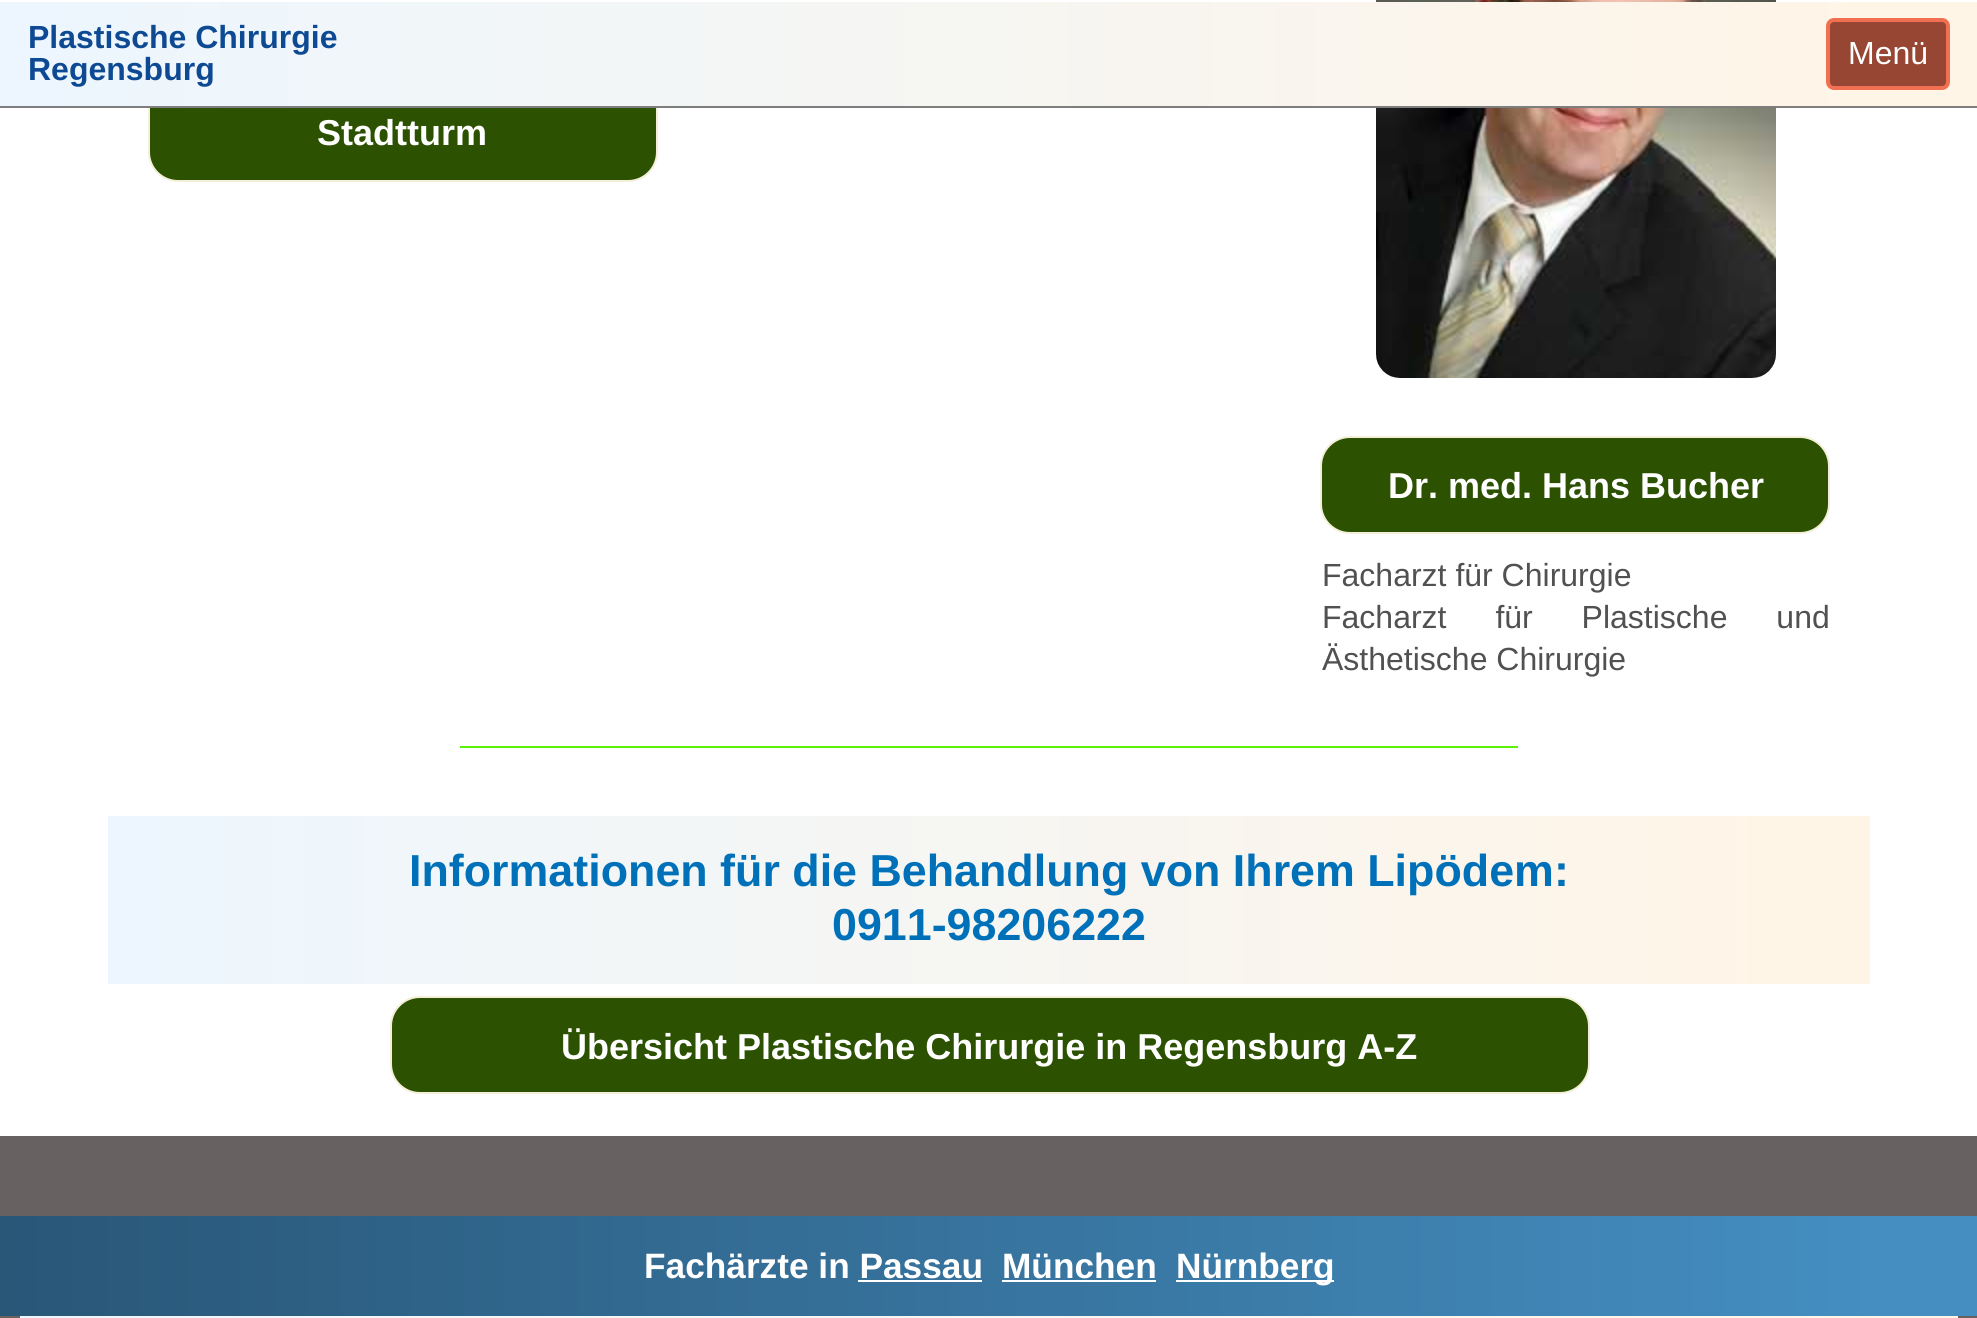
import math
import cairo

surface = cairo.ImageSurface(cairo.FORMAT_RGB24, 1977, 1318)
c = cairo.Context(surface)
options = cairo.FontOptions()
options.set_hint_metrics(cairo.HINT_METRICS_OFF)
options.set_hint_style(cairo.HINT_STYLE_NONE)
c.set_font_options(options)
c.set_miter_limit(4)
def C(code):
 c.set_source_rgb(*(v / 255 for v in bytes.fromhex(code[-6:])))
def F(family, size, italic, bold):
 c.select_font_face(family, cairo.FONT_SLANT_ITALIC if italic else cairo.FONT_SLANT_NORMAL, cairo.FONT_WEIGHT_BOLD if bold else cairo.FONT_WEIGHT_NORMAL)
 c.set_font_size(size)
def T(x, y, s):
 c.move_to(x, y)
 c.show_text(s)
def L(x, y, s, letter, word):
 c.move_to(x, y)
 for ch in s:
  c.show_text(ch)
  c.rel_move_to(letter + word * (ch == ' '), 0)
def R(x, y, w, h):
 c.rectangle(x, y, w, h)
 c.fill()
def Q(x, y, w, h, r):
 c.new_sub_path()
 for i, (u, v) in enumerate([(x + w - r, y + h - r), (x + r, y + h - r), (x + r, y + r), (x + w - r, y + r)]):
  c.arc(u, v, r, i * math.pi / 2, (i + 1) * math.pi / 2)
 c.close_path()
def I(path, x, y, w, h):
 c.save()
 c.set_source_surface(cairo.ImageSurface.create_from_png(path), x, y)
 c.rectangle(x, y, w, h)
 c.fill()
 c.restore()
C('ffffff')
c.paint()
C('2b5101')
Q(149,31,508,150,29)
c.fill_preserve()
C('f4efd9')
c.stroke()
I('1.png',1376,0,400,378)
gradient = cairo.LinearGradient(0,54,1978,54)
gradient.add_color_stop_rgba(.01,0.929,0.965,0.996,1)
gradient.add_color_stop_rgba(.95,1,0.961,0.906,1)
c.set_source(gradient)
R(0,2,1977,104)
C('7e7e7e')
R(0,106,1977,2)
F('Liberation Sans',32,0,1)
C('0e4a93')
T(28,48,'Plastische Chirurgie')
T(28,80,'Regensburg')
C('964633')
Q(1828,20,120,68,6)
c.fill_preserve()
C('f27052')
c.set_line_width(4)
c.stroke()
F('Liberation Sans',32,0,0)
C('ffffff')
T(1848,64,'Menü')
F('Liberation Sans',36,0,1)
T(317,145,'Stadtturm')
C('2b5101')
Q(1321,437,508,96,29)
c.fill_preserve()
C('f4efd9')
c.set_line_width(2)
c.stroke()
C('ffffff')
T(1388,498,'Dr. med. Hans Bucher')
F('Liberation Sans',32,0,0)
C('515151')
T(1322,586,'Facharzt für Chirurgie')
L(1322,628,'Facharzt für Plastische und',0,40)
T(1322,670,'Ästhetische Chirurgie')
C('5af305')
R(460,746,1058,2)
gradient = cairo.LinearGradient(108,900,1870,900)
gradient.add_color_stop_rgba(.01,0.929,0.965,0.996,1)
gradient.add_color_stop_rgba(.95,1,0.961,0.906,1)
c.set_source(gradient)
R(108,816,1762,168)
F('Liberation Sans',44.8,0,1)
C('0071b9')
T(409,886,'Informationen für die Behandlung von Ihrem Lipödem:')
T(832,940,'0911-98206222')
C('2b5101')
Q(391,997,1198,96,29)
c.fill_preserve()
C('f4efd9')
c.stroke()
F('Liberation Sans',36,0,1)
C('ffffff')
T(561,1059,'Übersicht Plastische Chirurgie in Regensburg A-Z')
C('686161')
R(0,1136,1977,182)
gradient = cairo.LinearGradient(20,1313,1958,1313)
gradient.add_color_stop_rgba(.01,0.929,0.965,0.996,1)
gradient.add_color_stop_rgba(.95,1,0.961,0.906,1)
c.set_source(gradient)
R(20,1316,1938,2)
gradient = cairo.LinearGradient(0,1266,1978,1266)
gradient.add_color_stop_rgba(.01,0.161,0.341,0.471,1)
gradient.add_color_stop_rgba(.95,0.267,0.557,0.757,1)
c.set_source(gradient)
R(0,1216,1977,100)
F('Liberation Sans',35.25,0,1)
C('ffffff')
T(644,1278,'Fachärzte in Passau')
T(1002,1278,'München')
R(1002,1280,154,2)
R(1176,1280,158,2)
T(1176,1278,'Nürnberg')
R(858,1280,124,2)
surface.write_to_png('o.png')
